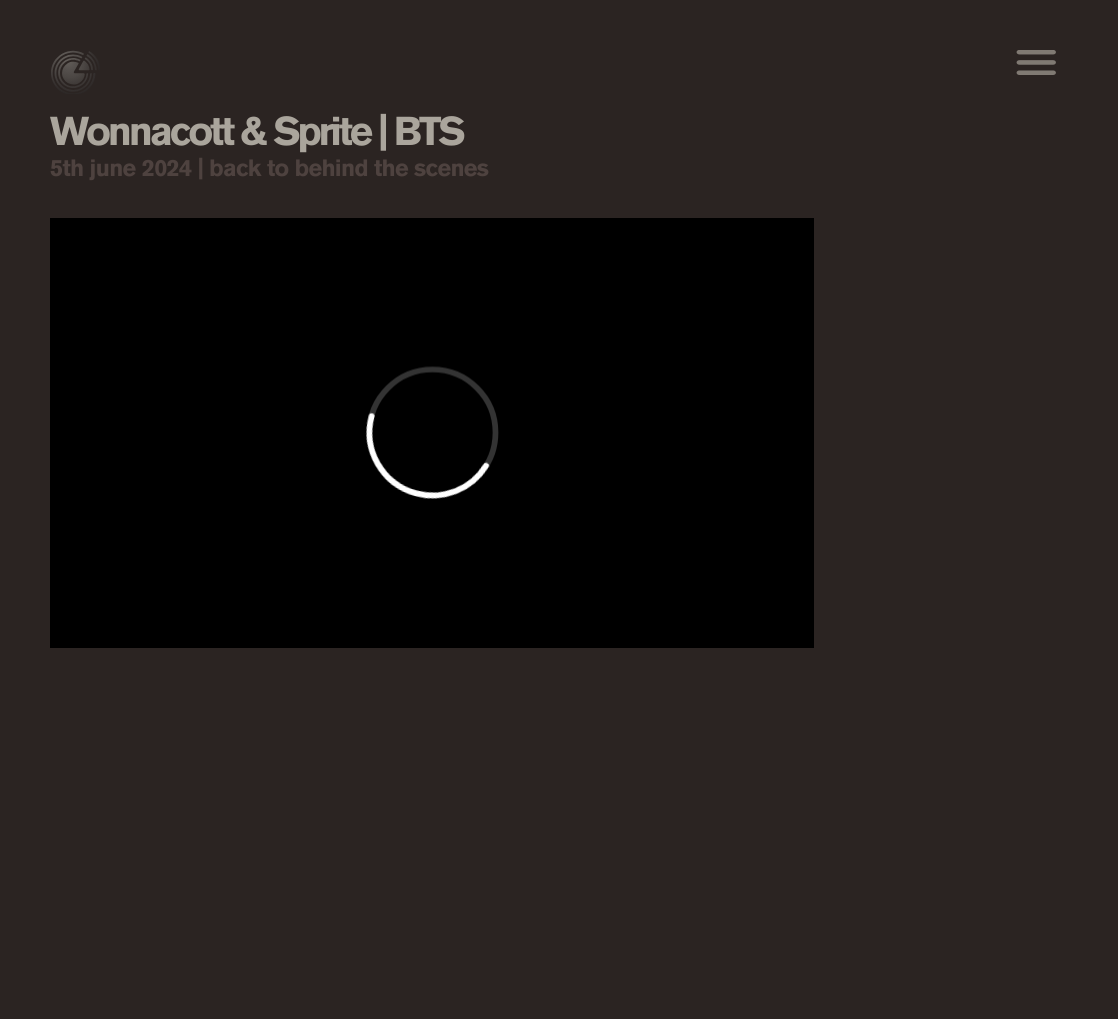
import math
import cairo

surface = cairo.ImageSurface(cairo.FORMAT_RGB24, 1118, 1019)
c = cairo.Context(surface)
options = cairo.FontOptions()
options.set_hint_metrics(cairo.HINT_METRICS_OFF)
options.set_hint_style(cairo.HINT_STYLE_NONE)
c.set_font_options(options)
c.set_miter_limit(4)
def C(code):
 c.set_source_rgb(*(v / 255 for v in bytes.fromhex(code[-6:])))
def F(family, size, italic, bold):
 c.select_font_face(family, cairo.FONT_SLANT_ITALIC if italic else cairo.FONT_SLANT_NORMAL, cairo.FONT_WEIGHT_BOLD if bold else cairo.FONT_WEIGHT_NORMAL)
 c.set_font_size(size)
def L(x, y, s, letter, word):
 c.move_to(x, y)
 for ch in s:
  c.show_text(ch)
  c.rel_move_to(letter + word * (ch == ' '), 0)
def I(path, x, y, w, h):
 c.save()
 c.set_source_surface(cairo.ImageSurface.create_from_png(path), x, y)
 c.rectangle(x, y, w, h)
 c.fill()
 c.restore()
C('2b2422')
c.paint()
I('1.png',51,50,49,44)
I('2.png',1016,50,40,25)
F('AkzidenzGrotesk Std',40,0,1)
C('aaa59c')
L(50,145,'Wonnacott & Sprite | BTS',-3.2,0)
F('AkzidenzGrotesk Std',23.4,0,1)
C('4e423f')
L(50,176,'5th june 2024 | back to behind the scenes',-.7,0)
I('3.png',50,218,764,430)
surface.write_to_png('o.png')
